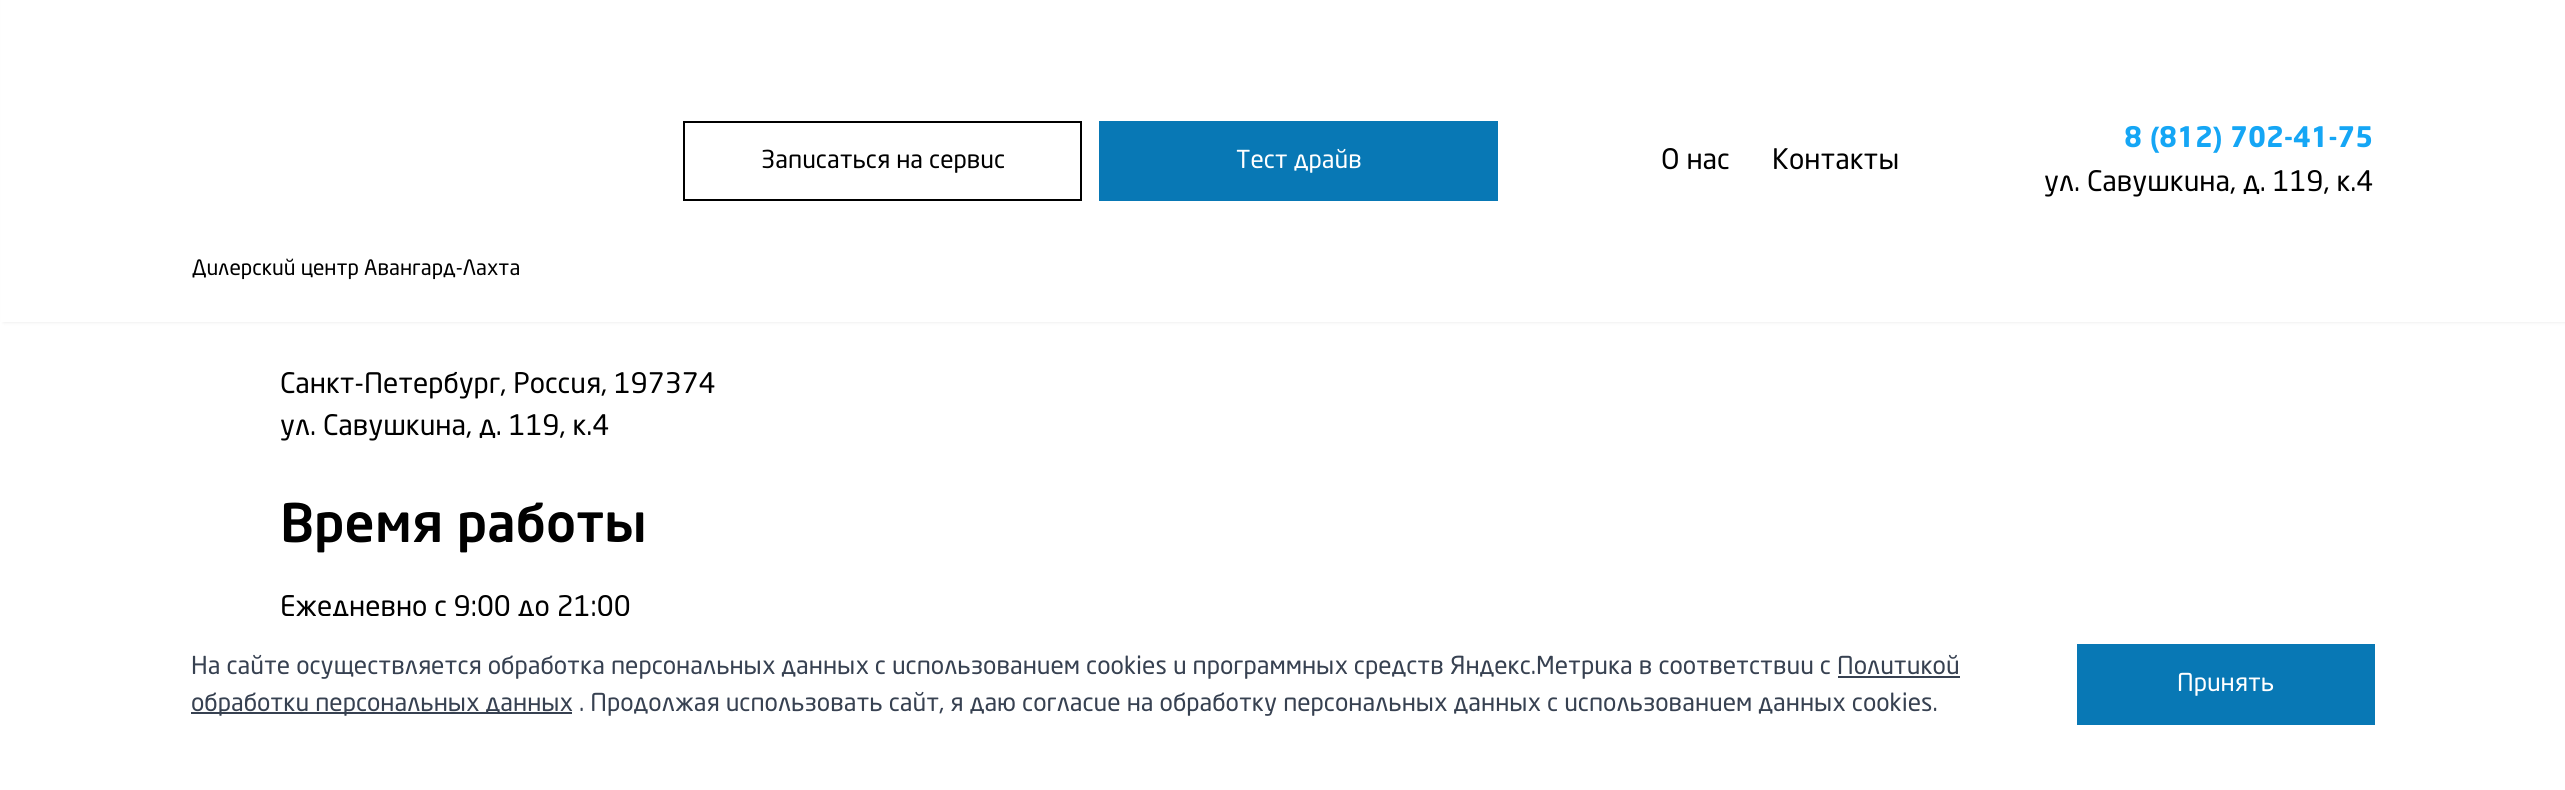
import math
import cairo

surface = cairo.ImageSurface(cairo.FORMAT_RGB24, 2565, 790)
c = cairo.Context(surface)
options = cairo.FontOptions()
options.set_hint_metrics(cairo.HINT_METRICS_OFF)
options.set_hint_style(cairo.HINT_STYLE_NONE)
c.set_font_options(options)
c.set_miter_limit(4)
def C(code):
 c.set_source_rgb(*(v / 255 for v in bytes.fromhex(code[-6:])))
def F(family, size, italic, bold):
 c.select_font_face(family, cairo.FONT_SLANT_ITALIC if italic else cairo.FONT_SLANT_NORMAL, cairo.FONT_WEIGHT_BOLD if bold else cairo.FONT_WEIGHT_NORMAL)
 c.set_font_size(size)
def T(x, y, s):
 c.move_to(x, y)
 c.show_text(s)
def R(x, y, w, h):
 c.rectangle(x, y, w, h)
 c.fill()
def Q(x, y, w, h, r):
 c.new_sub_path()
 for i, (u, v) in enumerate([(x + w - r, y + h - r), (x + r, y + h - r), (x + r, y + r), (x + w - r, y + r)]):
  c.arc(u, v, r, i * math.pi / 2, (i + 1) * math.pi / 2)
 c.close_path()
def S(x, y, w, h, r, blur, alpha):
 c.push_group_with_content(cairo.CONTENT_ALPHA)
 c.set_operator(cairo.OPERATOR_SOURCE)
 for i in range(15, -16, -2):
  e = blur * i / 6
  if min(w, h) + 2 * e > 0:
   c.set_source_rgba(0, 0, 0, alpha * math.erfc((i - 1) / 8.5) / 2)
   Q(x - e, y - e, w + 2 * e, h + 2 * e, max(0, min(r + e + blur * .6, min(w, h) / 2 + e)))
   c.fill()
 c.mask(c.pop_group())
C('ffffff')
c.paint()
C('000000')
S(4,0,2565,322,0,2,.1)
C('ffffff')
R(1,0,2564,322)
c.rectangle(684,122,397,78)
C('000000')
c.stroke()
F('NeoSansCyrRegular',24.5,0,0)
T(761,168,'Записаться на сервис')
C('0878b5')
R(1099,121,399,80)
C('ffffff')
T(1236,168,'Тест драйв')
F('NeoSansCyrRegular',28,0,0)
C('000000')
T(1661,169,'О нас')
T(1772,169,'Контакты')
F('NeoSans',28,0,1)
C('15a6f5')
T(2124,147,'8')
F('Liberation Sans',28,0,1)
T(2150,147,'(')
F('NeoSans',28,0,1)
T(2159,147,'812')
F('Liberation Sans',28,0,1)
T(2213,147,')')
F('NeoSans',28,0,1)
T(2230,147,'702-41-75')
F('NeoSansCyrRegular',28,0,0)
C('000000')
T(2044,191,'ул. Савушкина, д. 119, к.4')
F('NeoSansCyrRegular',21,0,0)
T(192,275,'Дилерский центр Авангард-Лахта')
F('NeoSansCyrRegular',28,0,0)
T(280,393,'Санкт-Петербург, Россия, 197374')
T(280,435,'ул. Савушкина, д. 119, к.4')
F('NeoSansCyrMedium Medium',52.5,0,0)
T(280,542,'Время работы')
F('NeoSansCyrRegular',28,0,0)
T(280,616,'Ежедневно с 9:00 до 21:00')
C('ffffff')
R(286,616,338,4)
F('NeoSansCyrRegular',24.5,0,0)
C('374151')
T(191,674,'На сайте осуществляется обработка персональных данных с использованием cookies и программных средств Яндекс.Метрика в соответствии с Политикой')
R(191,712,381,2)
T(191,711,'обработки персональных данных . Продолжая использовать сайт, я даю согласие на обработку персональных данных с использованием данных cookies.')
R(1838,676,122,2)
C('0878b5')
R(2077,644,298,81)
C('ffffff')
T(2177,691,'Принять')
surface.write_to_png('o.png')
